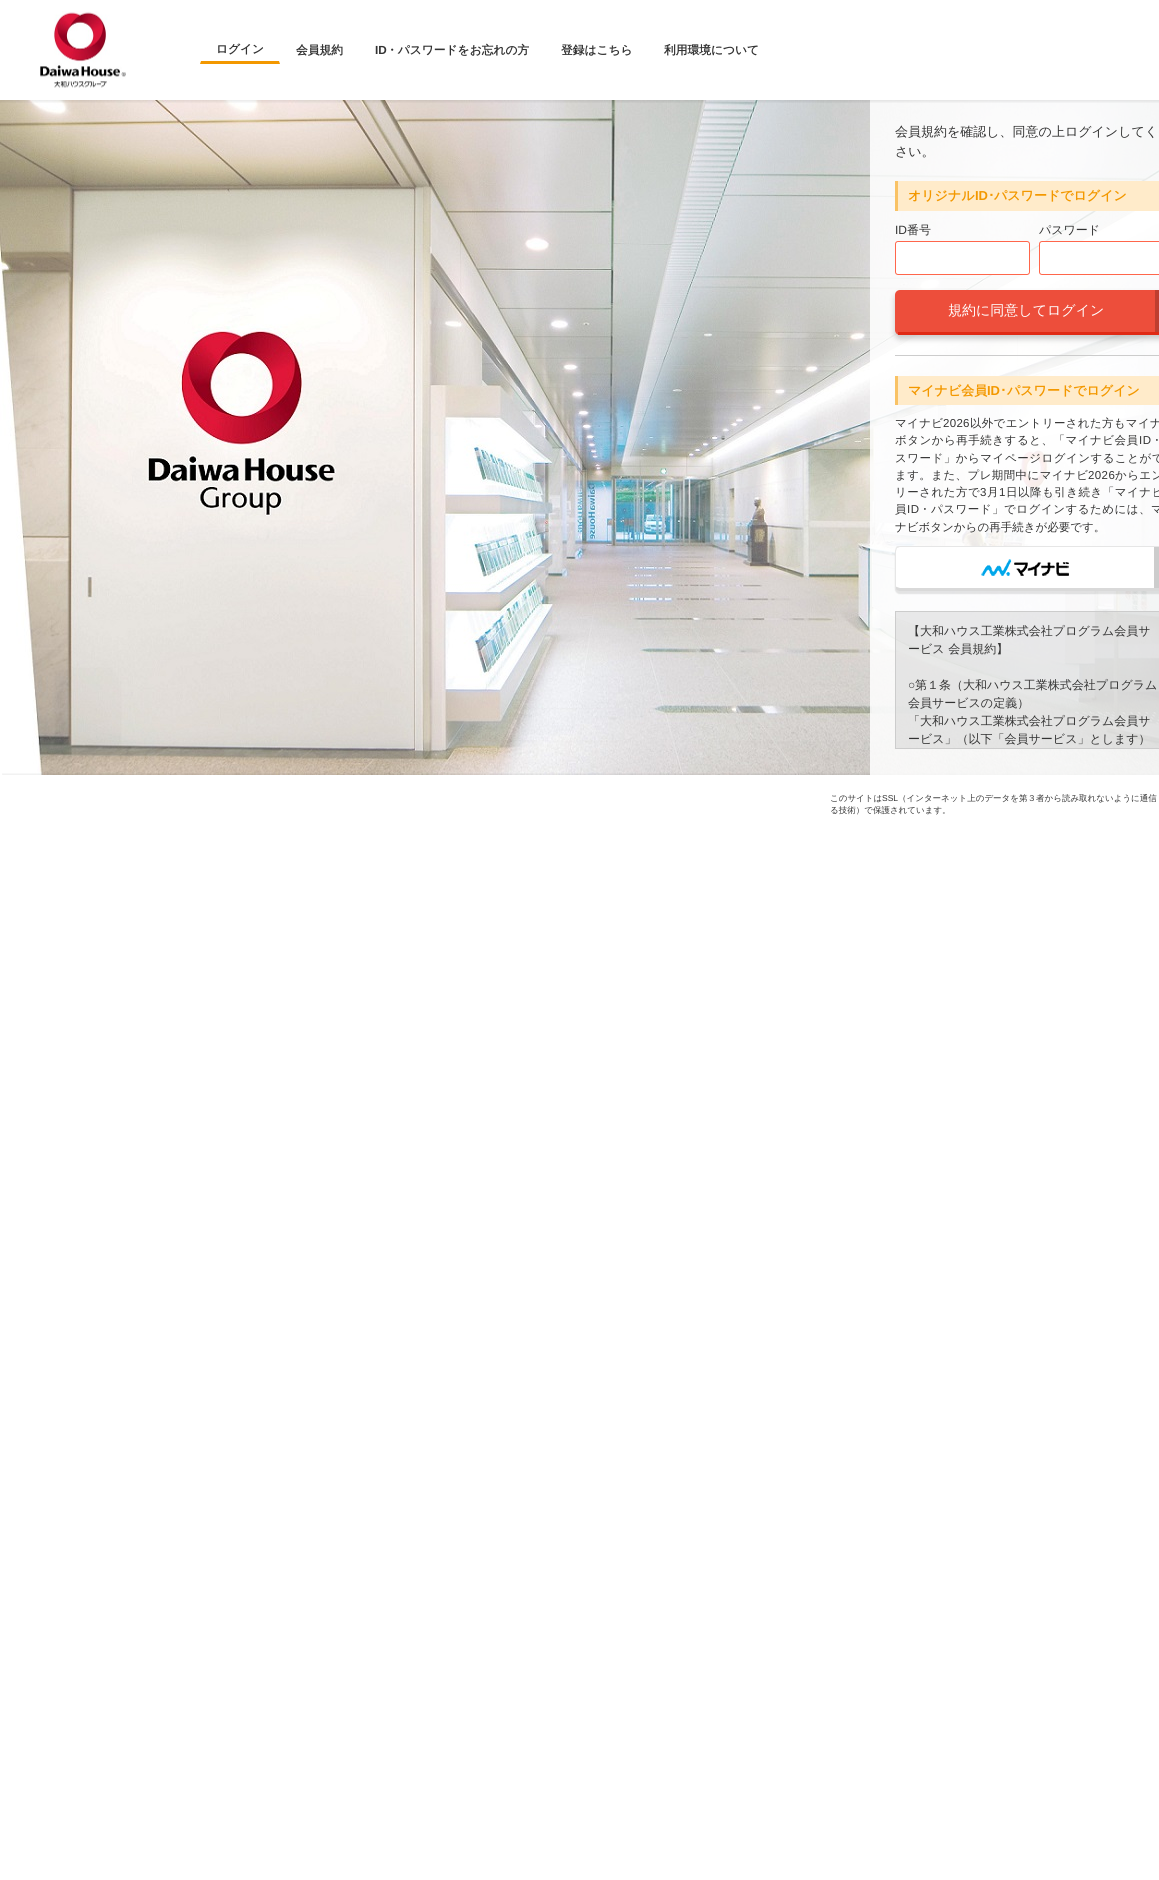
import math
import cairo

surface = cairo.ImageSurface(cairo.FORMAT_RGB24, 1159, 1880)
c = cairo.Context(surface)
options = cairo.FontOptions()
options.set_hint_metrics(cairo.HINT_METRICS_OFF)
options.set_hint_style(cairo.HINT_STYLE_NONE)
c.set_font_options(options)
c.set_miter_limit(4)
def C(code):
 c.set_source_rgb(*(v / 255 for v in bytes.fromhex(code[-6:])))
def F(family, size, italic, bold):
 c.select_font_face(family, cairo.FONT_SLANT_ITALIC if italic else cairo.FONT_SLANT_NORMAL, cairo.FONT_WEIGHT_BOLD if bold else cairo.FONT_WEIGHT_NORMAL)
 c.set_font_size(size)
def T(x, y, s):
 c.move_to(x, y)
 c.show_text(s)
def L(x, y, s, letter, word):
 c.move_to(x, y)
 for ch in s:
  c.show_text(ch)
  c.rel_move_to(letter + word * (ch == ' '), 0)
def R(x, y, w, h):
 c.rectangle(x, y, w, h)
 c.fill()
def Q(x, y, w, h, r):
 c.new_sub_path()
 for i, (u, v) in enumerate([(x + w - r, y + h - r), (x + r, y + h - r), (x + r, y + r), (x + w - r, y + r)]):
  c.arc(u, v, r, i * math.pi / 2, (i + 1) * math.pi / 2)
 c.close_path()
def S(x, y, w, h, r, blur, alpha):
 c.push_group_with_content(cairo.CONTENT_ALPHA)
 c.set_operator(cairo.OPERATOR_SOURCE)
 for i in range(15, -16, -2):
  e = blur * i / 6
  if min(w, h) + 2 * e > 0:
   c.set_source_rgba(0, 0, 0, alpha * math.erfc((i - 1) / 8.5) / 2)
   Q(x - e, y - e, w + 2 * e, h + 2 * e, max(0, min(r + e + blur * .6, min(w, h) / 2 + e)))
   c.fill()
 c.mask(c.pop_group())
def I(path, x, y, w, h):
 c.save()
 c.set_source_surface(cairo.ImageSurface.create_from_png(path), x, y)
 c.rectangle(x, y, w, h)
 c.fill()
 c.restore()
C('ffffff')
c.paint()
I('2.png',0,100,1159,675)
c.save()
c.rectangle(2,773,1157,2)
c.clip()
C('000000')
S(2,774,1157,78,0,1.5,.08)
c.restore()
c.set_source_rgba(1,1,1,0.85)
R(870,100,289,675)
c.save()
c.rectangle(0,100,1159,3)
c.clip()
C('000000')
S(0,0,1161,102,0,1.5,.08)
c.restore()
I('1.png',40,11,86,77)
C('f39800')
c.new_path()
c.move_to(280,64)
c.line_to(200,64)
c.line_to(201,61)
c.line_to(279,61)
c.close_path()
c.fill()
F('WenQuanYi Zen Hei',11.75,0,1)
C('333333')
T(216,53,'ログイン')
T(296,54,'会員規約')
F('Liberation Sans',11.75,0,1)
T(375,54,'ID')
F('WenQuanYi Zen Hei',11.75,0,1)
T(386,54,'・パスワードをお忘れの方')
T(561,54,'登録はこちら')
T(664,54,'利用環境について')
F('WenQuanYi Zen Hei Medium',13,0,0)
T(895,136,'会員規約を確認し、同意の上ログインしてく')
T(895,156,'さい。')
C('ffebca')
R(898,181,261,30)
C('f9c265')
R(895,181,3,30)
F('WenQuanYi Zen Hei',13,0,1)
C('f39800')
T(908,200,'オリジナル')
F('Liberation Sans',13,0,1)
T(975,200,'ID')
F('IPAPGothic',13,0,1)
T(988,200,'･')
F('WenQuanYi Zen Hei',13,0,1)
T(994,200,'パスワードでログイン')
F('Liberation Sans',12,0,0)
C('333333')
T(895,234,'ID')
F('WenQuanYi Zen Hei Medium',12,0,0)
T(907,234,'番号')
C('ffffff')
Q(895.5,241.5,134,33,2.5)
c.fill_preserve()
C('ff664b')
c.set_line_width(1)
c.stroke()
C('333333')
T(1039,234,'パスワード')
C('ffffff')
Q(1039.5,241.5,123,33,2.5)
c.fill_preserve()
C('ff664b')
c.stroke()
C('000000')
S(895,294,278,45,5,3,.2)
C('ed4e3b')
Q(895,290,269,45,5)
c.fill()
C('be3e2f')
R(1155,290,4,45)
C('e02a15')
R(898,332,261,3)
F('WenQuanYi Zen Hei Medium',14,0,0)
C('ffffff')
T(948,315,'規約に同意してログイン')
C('cccccc')
R(895,355,264,1)
C('ffebca')
R(898,376,261,29)
C('f9c265')
R(895,376,3,29)
F('WenQuanYi Zen Hei',13,0,1)
C('f39800')
T(908,395,'マイナビ会員')
F('Liberation Sans',13,0,1)
T(987,395,'ID')
F('IPAPGothic',13,0,1)
T(1000,395,'･')
F('WenQuanYi Zen Hei',13,0,1)
T(1007,395,'パスワードでログイン')
F('WenQuanYi Zen Hei Medium',11.5,0,0)
C('333333')
L(895,427,'マイナビ',.3,0)
F('Liberation Sans',11.5,0,0)
L(943,427,'2026',.3,0)
F('WenQuanYi Zen Hei Medium',11.5,0,0)
L(970,427,'以外でエントリーされた方もマイナ',.3,0)
L(895,444,'ボタンから再手続きすると、「マイナビ会員',.5,0)
F('Liberation Sans',11.5,0,0)
L(1139,444,'ID',.5,0)
F('WenQuanYi Zen Hei Medium',11.5,0,0)
L(1151,444,'・',.5,0)
L(895,462,'スワード」からマイページログインすることがで',.5,0)
L(895,479,'ます。また、プレ期間中にマイナビ',.4,0)
F('Liberation Sans',11.5,0,0)
L(1088,479,'2026',.4,0)
F('WenQuanYi Zen Hei Medium',11.5,0,0)
L(1115,479,'からエン',.4,0)
L(895,496,'リーされた方で',.5,0)
F('Liberation Sans',11.5,0,0)
L(980,496,'3',.5,0)
F('WenQuanYi Zen Hei Medium',11.5,0,0)
L(987,496,'月',.5,0)
F('Liberation Sans',11.5,0,0)
L(999,496,'1',.5,0)
F('WenQuanYi Zen Hei Medium',11.5,0,0)
L(1006,496,'日以降も引き続き「マイナビ',.5,0)
L(895,513,'員',.5,0)
F('Liberation Sans',11.5,0,0)
L(907,513,'ID',.5,0)
F('WenQuanYi Zen Hei Medium',11.5,0,0)
L(919,513,'・パスワード」でログインするためには、マ',.5,0)
T(895,531,'ナビボタンからの再手続きが必要です。')
C('000000')
S(895,549,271,45,5,.5,.1)
C('ffffff')
c.new_path()
c.move_to(900,547)
c.line_to(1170,547)
c.curve_to(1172,547,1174,549,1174,551)
c.line_to(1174,586)
c.curve_to(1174,587,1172,588,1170,588)
c.line_to(900,588)
c.curve_to(898,588,896,587,896,586)
c.line_to(896,551)
c.curve_to(896,549,898,547,900,547)
c.close_path()
c.fill()
I('3.png',981,547,178,41)
C('e6e6e6')
c.new_path()
c.move_to(900,546)
c.curve_to(898,546,897,546,896,547)
c.line_to(897,548)
c.curve_to(898,548,899,547,900,547)
c.line_to(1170,547)
c.curve_to(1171,547,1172,548,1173,548)
c.line_to(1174,547)
c.curve_to(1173,546,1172,546,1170,546)
c.close_path()
c.fill()
C('d9d9d9')
c.new_path()
c.move_to(900,591)
c.line_to(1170,591)
c.curve_to(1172,591,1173,590,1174,589)
c.line_to(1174,587)
c.curve_to(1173,587,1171,588,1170,588)
c.line_to(900,588)
c.curve_to(899,588,897,587,896,587)
c.line_to(896,589)
c.curve_to(897,590,898,591,900,591)
c.close_path()
c.fill()
C('e6e6e6')
c.new_path()
c.move_to(895,551)
c.line_to(895,586)
c.line_to(896,589)
c.line_to(896,587)
c.curve_to(896,586,896,554,896,551)
c.line_to(897,548)
c.line_to(896,547)
c.curve_to(896,548,895,550,895,551)
c.close_path()
c.fill()
c.set_source_rgba(0,0,0,0.08)
c.rectangle(895.5,611.5,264,137)
c.fill_preserve()
C('cccccc')
c.stroke()
F('WenQuanYi Zen Hei Medium',12,0,0)
C('333333')
T(908,635,'【大和ハウス工業株式会社プログラム会員サ')
T(908,653,'ービス 会員規約】')
F('Liberation Sans',12,0,0)
T(908,689,'○')
F('WenQuanYi Zen Hei Medium',12,0,0)
T(915,689,'第１条（大和ハウス工業株式会社プログラム')
T(908,707,'会員サービスの定義）')
T(908,725,'「大和ハウス工業株式会社プログラム会員サ')
T(908,743,'ービス」（以下「会員サービス」とします）')
F('WenQuanYi Zen Hei Medium',8.5,0,0)
T(830,801,'このサイトは')
F('Liberation Sans',8.5,0,0)
T(882,801,'SSL')
F('WenQuanYi Zen Hei Medium',8.5,0,0)
T(898,801,'（インターネット上のデータを第３者から読み取れないように通信')
T(830,813,'る技術）で保護されています。')
surface.write_to_png('o.png')
